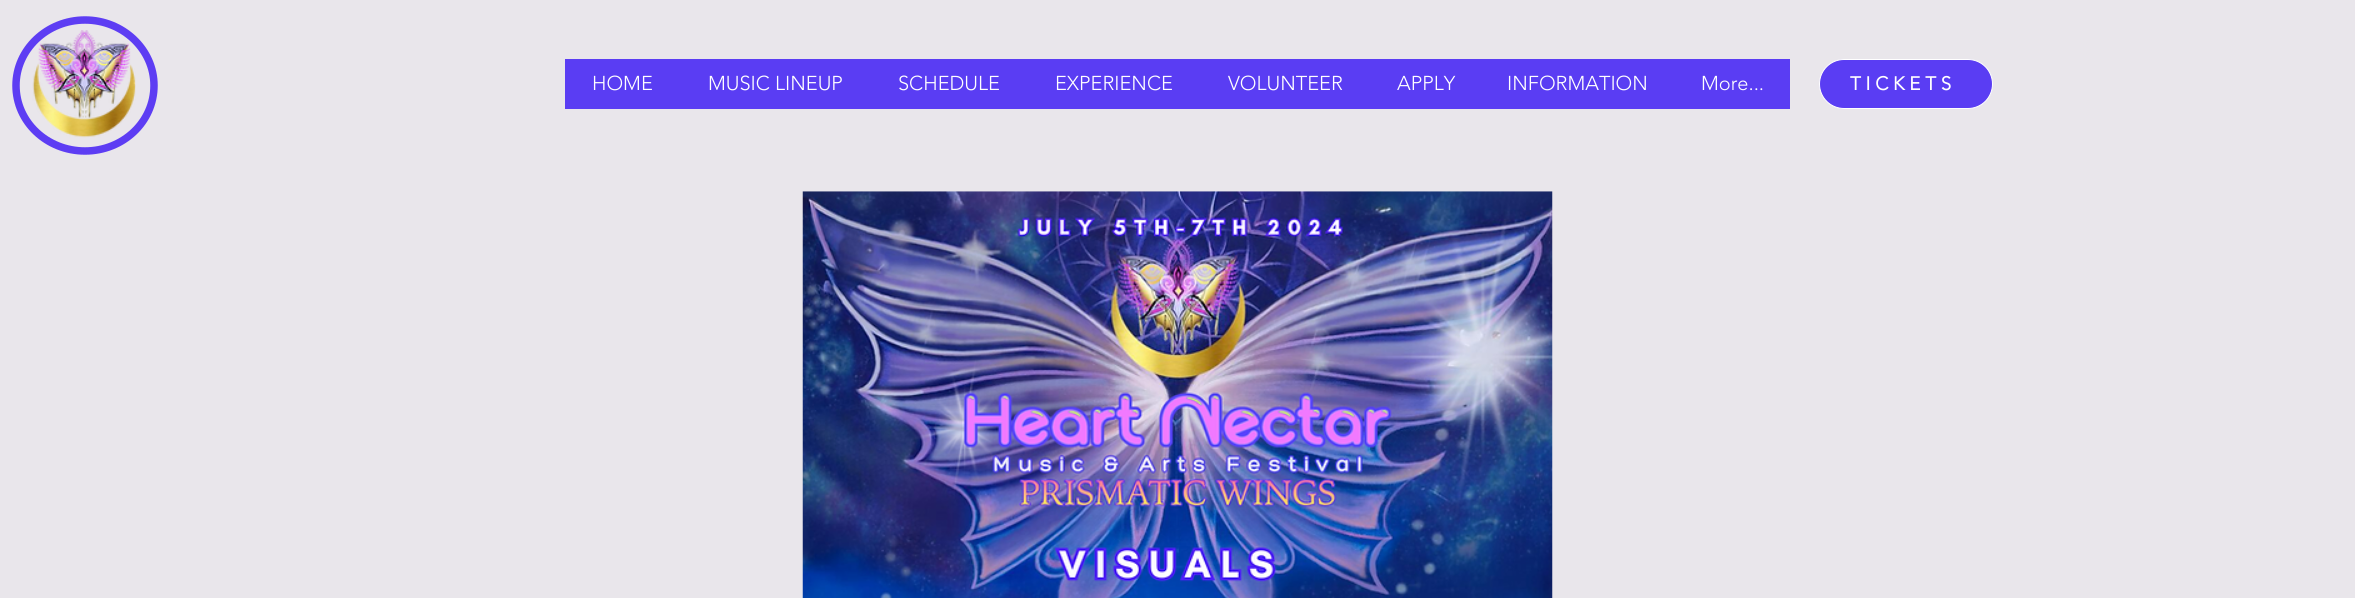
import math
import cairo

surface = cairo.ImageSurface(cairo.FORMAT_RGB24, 2355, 598)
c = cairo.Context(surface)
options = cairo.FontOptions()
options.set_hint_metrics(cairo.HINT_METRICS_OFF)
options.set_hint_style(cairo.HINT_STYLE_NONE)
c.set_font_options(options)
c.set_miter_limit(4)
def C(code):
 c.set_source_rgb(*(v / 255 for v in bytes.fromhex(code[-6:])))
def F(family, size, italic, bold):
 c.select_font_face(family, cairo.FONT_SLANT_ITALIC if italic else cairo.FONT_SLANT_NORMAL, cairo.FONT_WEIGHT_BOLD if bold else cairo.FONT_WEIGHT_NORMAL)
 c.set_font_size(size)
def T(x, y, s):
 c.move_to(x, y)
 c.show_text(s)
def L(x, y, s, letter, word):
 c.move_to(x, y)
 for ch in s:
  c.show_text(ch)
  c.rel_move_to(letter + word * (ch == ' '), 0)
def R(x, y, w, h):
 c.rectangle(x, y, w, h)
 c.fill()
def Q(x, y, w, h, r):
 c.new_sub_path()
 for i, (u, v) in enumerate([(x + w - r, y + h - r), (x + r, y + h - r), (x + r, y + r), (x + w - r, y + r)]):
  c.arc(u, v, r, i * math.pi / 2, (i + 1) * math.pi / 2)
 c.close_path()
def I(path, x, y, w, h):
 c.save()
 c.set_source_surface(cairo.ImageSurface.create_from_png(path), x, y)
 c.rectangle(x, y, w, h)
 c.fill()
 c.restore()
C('e9e6eb')
c.paint()
c.new_path()
c.move_to(85,20)
c.curve_to(123,20,154,49.5,154,85.5)
c.curve_to(154,122,123,151,85,151)
c.curve_to(47,151,16,122,16,85.5)
c.curve_to(16,49.5,47,20,85,20)
c.close_path()
C('5d3df3')
c.set_line_width(7.5)
c.stroke()
I('1.png',32,30,104,108)
C('5a3df3')
R(565,59,1225,50)
F('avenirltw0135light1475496 Light',20,0,0)
C('ffffff')
T(592,90,'HOME')
T(708,90,'MUSIC LINEUP')
T(898,90,'SCHEDULE')
T(1055,90,'EXPERIENCE')
T(1228,90,'VOLUNTEER')
T(1397,90,'APPLY')
T(1507,90,'INFORMATION')
T(1701,90,'More...')
C('5a3df3')
Q(1819.5,59.5,173,49,24.5)
c.fill_preserve()
C('ffffff')
c.set_line_width(1)
c.stroke()
F('avenirltw0135light1475496',18.75,0,1)
L(1850,90,'TICKETS',4.75,0)
I('2.png',802,191,751,407)
surface.write_to_png('o.png')
